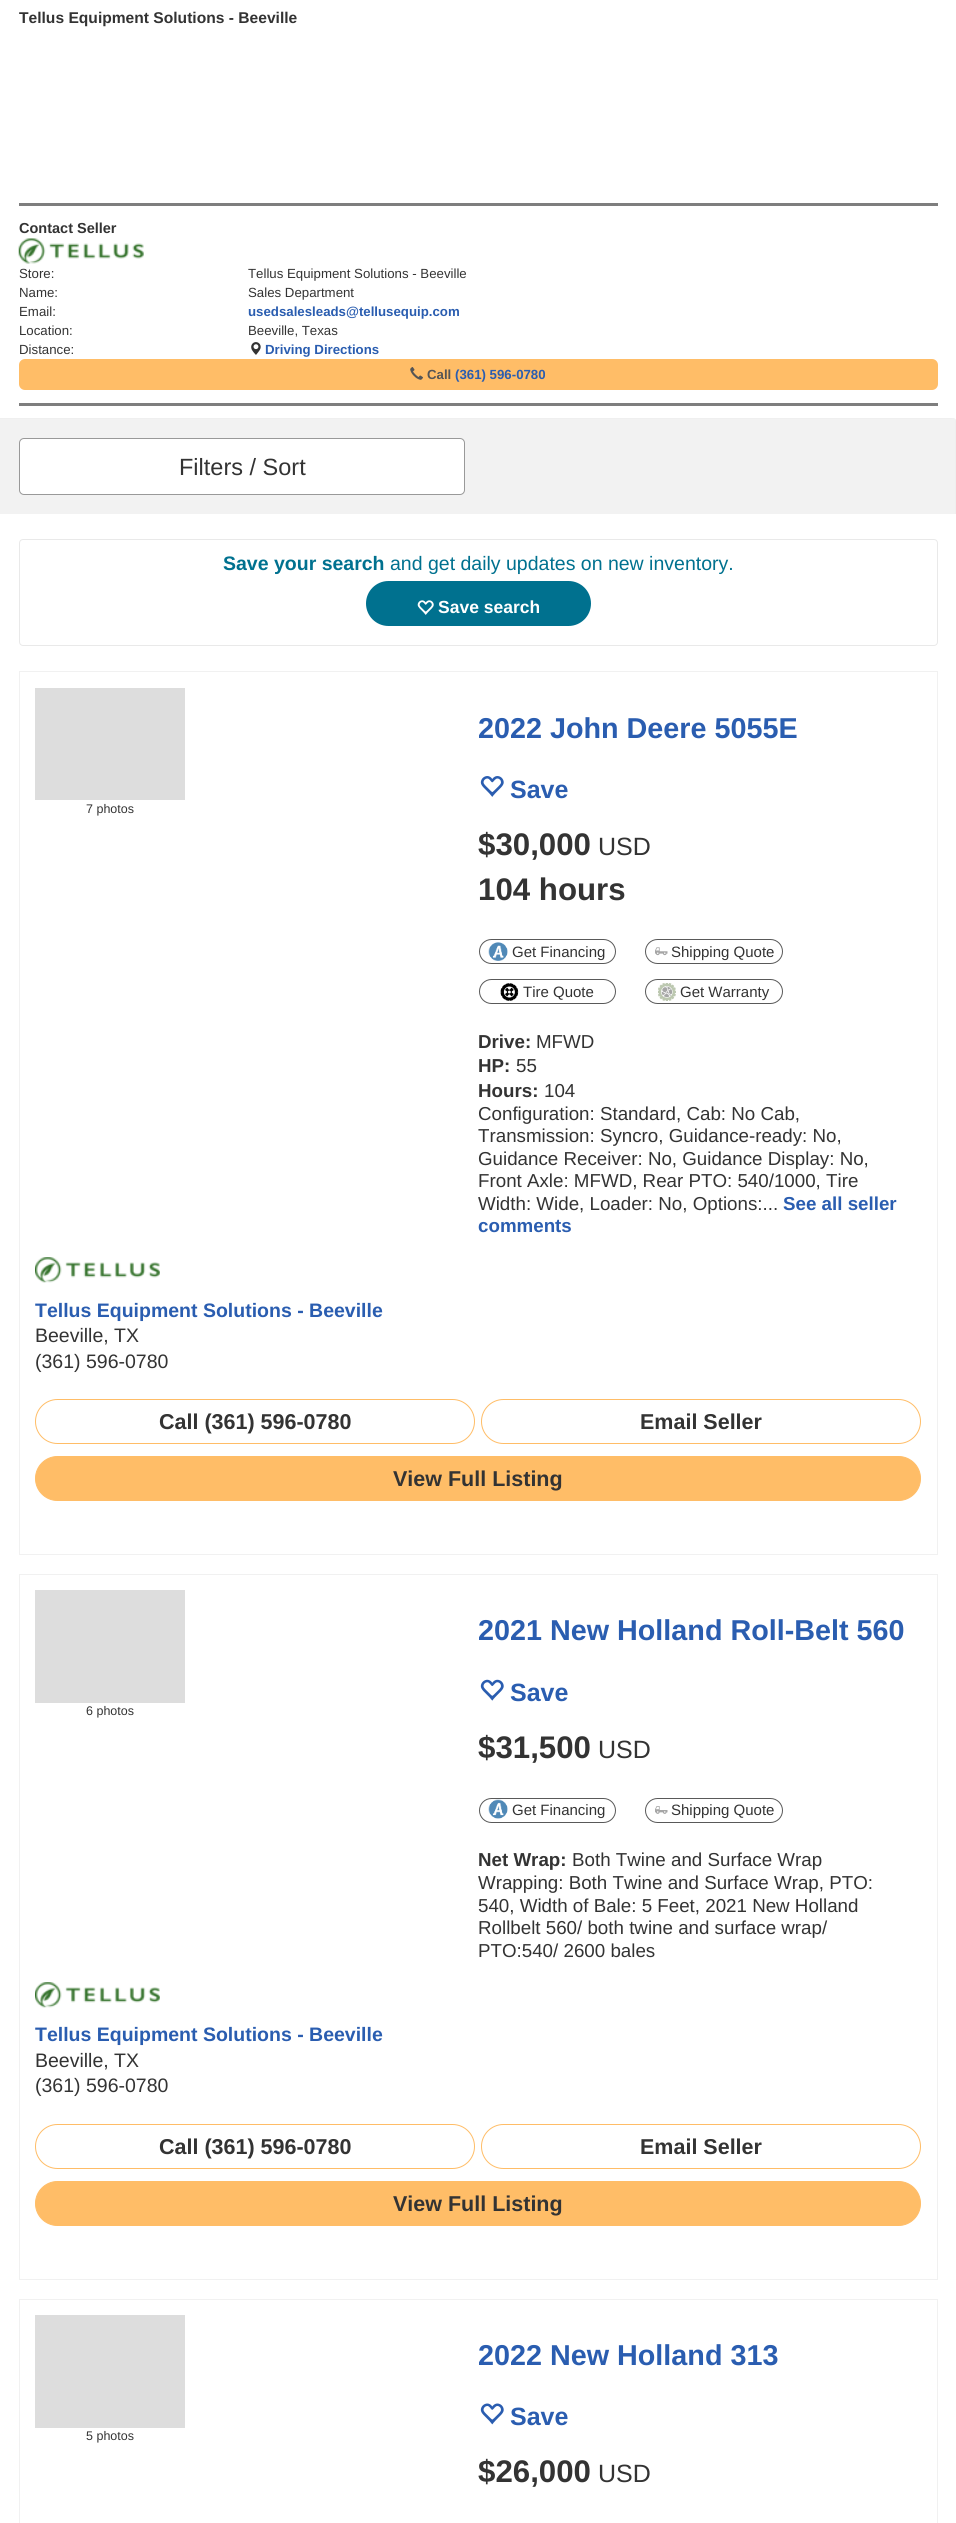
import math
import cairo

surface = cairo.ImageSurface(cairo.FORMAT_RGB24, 956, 2523)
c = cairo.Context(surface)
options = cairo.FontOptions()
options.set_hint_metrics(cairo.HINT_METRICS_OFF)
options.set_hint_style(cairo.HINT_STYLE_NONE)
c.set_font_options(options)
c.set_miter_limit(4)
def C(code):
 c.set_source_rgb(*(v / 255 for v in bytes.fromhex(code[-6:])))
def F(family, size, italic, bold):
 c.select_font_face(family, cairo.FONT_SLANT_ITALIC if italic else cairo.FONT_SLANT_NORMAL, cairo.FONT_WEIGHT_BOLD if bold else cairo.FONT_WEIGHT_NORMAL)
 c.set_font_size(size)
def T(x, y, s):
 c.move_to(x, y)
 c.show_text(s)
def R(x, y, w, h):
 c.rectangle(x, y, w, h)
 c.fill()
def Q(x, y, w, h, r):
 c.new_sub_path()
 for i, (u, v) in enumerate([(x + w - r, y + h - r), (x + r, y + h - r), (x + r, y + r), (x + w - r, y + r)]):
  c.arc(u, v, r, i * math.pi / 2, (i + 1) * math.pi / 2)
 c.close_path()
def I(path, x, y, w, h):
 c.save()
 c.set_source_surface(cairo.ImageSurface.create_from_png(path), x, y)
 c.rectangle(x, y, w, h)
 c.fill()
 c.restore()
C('ffffff')
c.paint()
F('Liberation Sans',15.6,0,1)
C('333333')
T(19,23,'Tellus Equipment Solutions - Beeville')
C('7e7e7e')
R(19,403,919,3)
R(19,203,919,3)
F('Liberation Sans',14.5,0,1)
C('333333')
T(19,233,'Contact Seller')
I('1.png',18,238,126,26)
F('Liberation Sans',13.25,0,0)
T(19,278,'Store:')
T(248,278,'Tellus Equipment Solutions - Beeville')
T(19,297,'Name:')
T(248,297,'Sales Department')
T(19,316,'Email:')
F('Liberation Sans',13.25,0,1)
C('2a5db0')
T(248,316,'usedsalesleads@tellusequip.com')
F('Liberation Sans',13.25,0,0)
C('333333')
T(19,335,'Location:')
T(248,335,'Beeville, Texas')
T(19,354,'Distance:')
I('2.png',251,342,10,13)
F('Liberation Sans',13.25,0,1)
C('2a5db0')
T(265,354,'Driving Directions')
C('ffbd67')
Q(19,359,919,31,6)
c.fill()
I('3.png',410,367,13,13)
C('555555')
T(427,379,'Call')
C('2a5db0')
T(455,379,'(361) 596-0780')
C('efefef')
c.set_fill_rule(cairo.FILL_RULE_EVEN_ODD)
c.new_path()
c.move_to(0,418)
c.line_to(952,418)
c.curve_to(955,418,956,419,956,421)
c.line_to(956,514)
c.line_to(0,514)
c.close_path()
c.move_to(0,419)
c.line_to(952,419)
c.curve_to(954,419,955,420,955,421)
c.line_to(955,514)
c.line_to(0,514)
c.close_path()
c.fill()
C('f2f2f2')
R(0,419,955,95)
C('ffffff')
Q(19.5,438.5,445,56,4.5)
c.fill_preserve()
C('999999')
c.set_line_width(1)
c.stroke()
F('Liberation Sans',23.5,0,0)
C('333333')
T(179,475,'Filters / Sort')
Q(19.5,539.5,918,106,3.5)
C('e9e9e9')
c.stroke()
F('Liberation Sans',19.5,0,1)
C('00718f')
T(223,570,'Save your search')
F('Liberation Sans',19.5,0,0)
T(390,570,'and get daily updates on new inventory.')
Q(366,581,225,45,22.5)
c.fill()
I('4.png',417,600,17,15)
F('Liberation Sans',17.5,0,1)
C('ffffff')
T(438,613,'Save search')
c.rectangle(19.5,671.5,918,883)
C('f1f1f1')
c.stroke()
C('dddddd')
R(35,688,150,112)
F('Liberation Sans',12.5,0,0)
C('333333')
T(86,813,'7 photos')
F('Liberation Sans',28.75,0,1)
C('2a5db0')
T(478,738,'2022 John Deere 5055E')
I('5.png',480,776,24,21)
F('Liberation Sans',25,0,1)
T(510,798,'Save')
F('Liberation Sans',31.25,0,1)
C('333333')
T(478,855,'$30,000')
F('Liberation Sans',25,0,0)
T(598,855,'USD')
F('Liberation Sans',31.25,0,1)
T(478,900,'104 hours')
Q(479.5,939.5,136,24,12)
C('595959')
c.stroke()
I('6.png',488,942,20,19)
F('Liberation Sans',15,0,0)
C('333333')
T(512,957,'Get Financing')
Q(645.5,939.5,137,24,12)
C('595959')
c.stroke()
I('7.png',655,947,13,9)
C('333333')
T(671,957,'Shipping Quote')
Q(479.5,979.5,136,24,12)
C('595959')
c.stroke()
I('8.png',500,983,19,18)
C('333333')
T(523,997,'Tire Quote')
Q(645.5,979.5,137,24,12)
C('595959')
c.stroke()
I('9.png',658,983,18,18)
C('333333')
T(680,997,'Get Warranty')
F('Liberation Sans',18.75,0,1)
T(478,1048,'Drive:')
F('Liberation Sans',18.75,0,0)
T(536,1048,'MFWD')
F('Liberation Sans',18.75,0,1)
T(478,1072,'HP:')
F('Liberation Sans',18.75,0,0)
T(516,1072,'55')
F('Liberation Sans',18.75,0,1)
T(478,1097,'Hours:')
F('Liberation Sans',18.75,0,0)
T(544,1097,'104')
T(478,1120,'Configuration: Standard, Cab: No Cab,')
T(478,1142,'Transmission: Syncro, Guidance-ready: No,')
T(478,1165,'Guidance Receiver: No, Guidance Display: No,')
T(478,1187,'Front Axle: MFWD, Rear PTO: 540/1000, Tire')
T(478,1210,'Width: Wide, Loader: No, Options:...')
F('Liberation Sans',18.75,0,1)
C('2a5db0')
T(783,1210,'See all seller')
T(478,1232,'comments')
I('10.png',35,1257,125,26)
F('Liberation Sans',19.5,0,1)
T(35,1317,'Tellus Equipment Solutions - Beeville')
F('Liberation Sans',19.5,0,0)
C('333333')
T(35,1342,'Beeville, TX')
T(35,1368,'(361) 596-0780')
Q(35.5,1399.5,439,44,22)
C('ffbd67')
c.stroke()
F('Liberation Sans',21.5,0,1)
C('333333')
T(159,1429,'Call (361) 596-0780')
Q(481.5,1399.5,439,44,22)
C('ffbd67')
c.stroke()
C('333333')
T(640,1429,'Email Seller')
C('ffbd67')
Q(35.5,1456.5,885,44,22)
c.fill_preserve()
c.stroke()
C('333333')
T(393,1486,'View Full Listing')
c.rectangle(19.5,1574.5,918,705)
C('f1f1f1')
c.stroke()
C('dddddd')
R(35,1590,150,113)
F('Liberation Sans',12.5,0,0)
C('333333')
T(86,1715,'6 photos')
F('Liberation Sans',28.75,0,1)
C('2a5db0')
T(478,1640,'2021 New Holland Roll-Belt 560')
I('11.png',480,1679,24,22)
F('Liberation Sans',25,0,1)
T(510,1701,'Save')
F('Liberation Sans',31.25,0,1)
C('333333')
T(478,1758,'$31,500')
F('Liberation Sans',25,0,0)
T(598,1758,'USD')
Q(479.5,1798.5,136,24,12)
C('595959')
c.stroke()
I('12.png',488,1799,20,20)
F('Liberation Sans',15,0,0)
C('333333')
T(512,1815,'Get Financing')
Q(645.5,1798.5,137,24,12)
C('595959')
c.stroke()
I('13.png',655,1806,13,8)
C('333333')
T(671,1815,'Shipping Quote')
F('Liberation Sans',18.75,0,1)
T(478,1866,'Net Wrap:')
F('Liberation Sans',18.75,0,0)
T(572,1866,'Both Twine and Surface Wrap')
T(478,1889,'Wrapping: Both Twine and Surface Wrap, PTO:')
T(478,1912,'540, Width of Bale: 5 Feet, 2021 New Holland')
T(478,1934,'Rollbelt 560/ both twine and surface wrap/')
T(478,1957,'PTO:540/ 2600 bales')
I('10.png',35,1982,125,26)
F('Liberation Sans',19.5,0,1)
C('2a5db0')
T(35,2041,'Tellus Equipment Solutions - Beeville')
F('Liberation Sans',19.5,0,0)
C('333333')
T(35,2067,'Beeville, TX')
T(35,2092,'(361) 596-0780')
Q(35.5,2124.5,439,44,22)
C('ffbd67')
c.stroke()
F('Liberation Sans',21.5,0,1)
C('333333')
T(159,2154,'Call (361) 596-0780')
Q(481.5,2124.5,439,44,22)
C('ffbd67')
c.stroke()
C('333333')
T(640,2154,'Email Seller')
C('ffbd67')
Q(35.5,2181.5,885,44,22)
c.fill_preserve()
c.stroke()
C('333333')
T(393,2211,'View Full Listing')
c.rectangle(19.5,2299.5,918,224)
C('f1f1f1')
c.stroke()
C('dddddd')
R(35,2315,150,113)
F('Liberation Sans',12.5,0,0)
C('333333')
T(86,2440,'5 photos')
F('Liberation Sans',28.75,0,1)
C('2a5db0')
T(478,2365,'2022 New Holland 313')
I('14.png',480,2403,24,22)
F('Liberation Sans',25,0,1)
T(510,2425,'Save')
F('Liberation Sans',31.25,0,1)
C('333333')
T(478,2482,'$26,000')
F('Liberation Sans',25,0,0)
T(598,2482,'USD')
surface.write_to_png('o.png')
